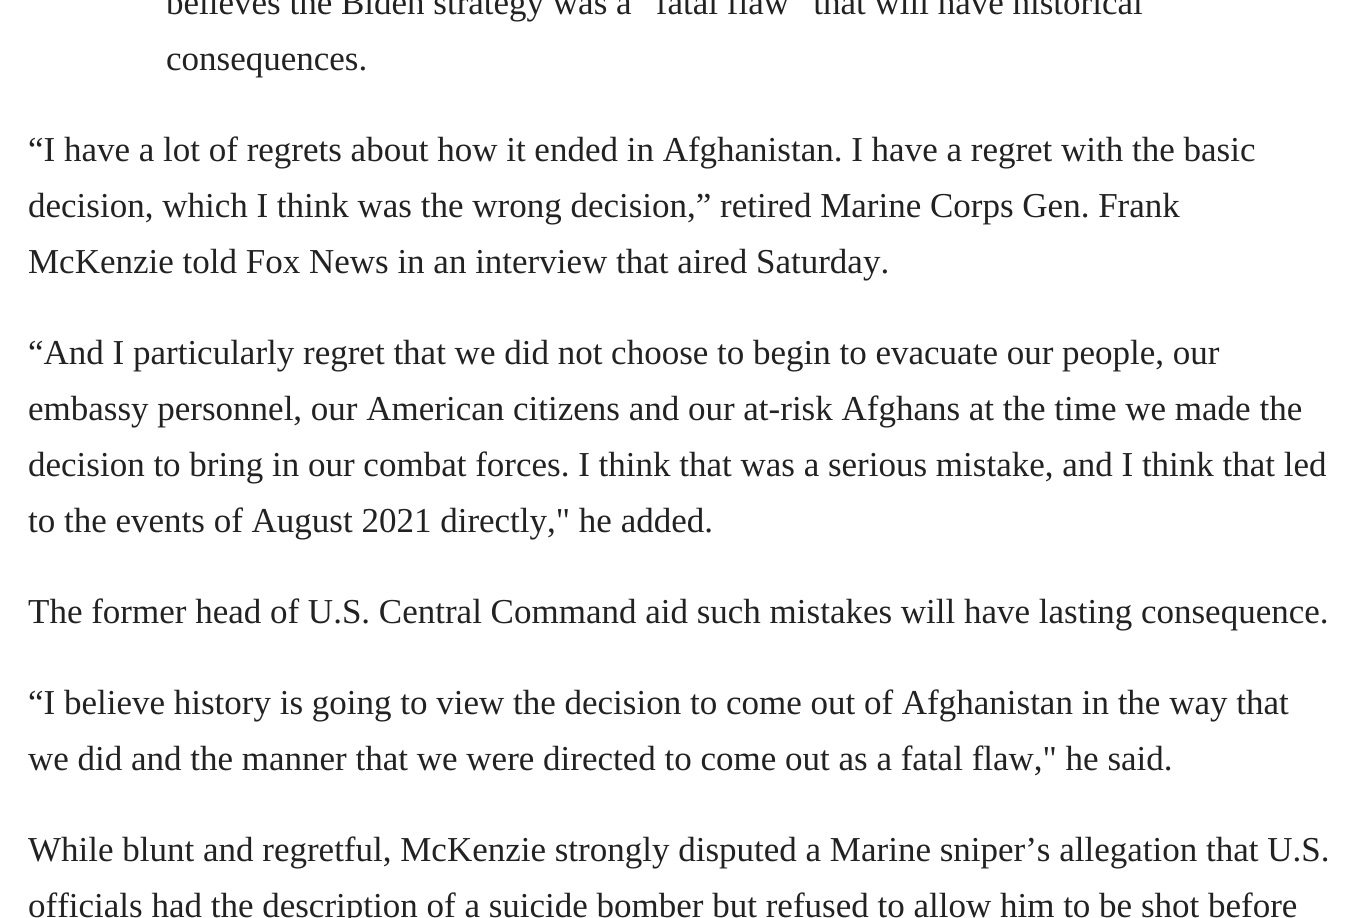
import math
import cairo

surface = cairo.ImageSurface(cairo.FORMAT_RGB24, 1360, 918)
c = cairo.Context(surface)
options = cairo.FontOptions()
options.set_hint_metrics(cairo.HINT_METRICS_OFF)
options.set_hint_style(cairo.HINT_STYLE_NONE)
c.set_font_options(options)
c.set_miter_limit(4)
def C(code):
 c.set_source_rgb(*(v / 255 for v in bytes.fromhex(code[-6:])))
def F(family, size, italic, bold):
 c.select_font_face(family, cairo.FONT_SLANT_ITALIC if italic else cairo.FONT_SLANT_NORMAL, cairo.FONT_WEIGHT_BOLD if bold else cairo.FONT_WEIGHT_NORMAL)
 c.set_font_size(size)
def T(x, y, s):
 c.move_to(x, y)
 c.show_text(s)
C('ffffff')
c.paint()
F('Liberation Serif',35,0,0)
C('222222')
T(166,14,'believes the Biden strategy was a “fatal flaw” that will have historical')
T(166,70,'consequences.')
T(28,161,'“I have a lot of regrets about how it ended in Afghanistan. I have a regret with the basic')
T(28,217,'decision, which I think was the wrong decision,” retired Marine Corps Gen. Frank')
T(28,273,'McKenzie told Fox News in an interview that aired Saturday.')
T(28,364,'“And I particularly regret that we did not choose to begin to evacuate our people, our')
T(28,420,'embassy personnel, our American citizens and our at-risk Afghans at the time we made the')
T(28,476,'decision to bring in our combat forces. I think that was a serious mistake, and I think that led')
T(28,532,'to the events of August 2021 directly," he added.')
T(28,623,'The former head of U.S. Central Command aid such mistakes will have lasting consequence.')
T(28,714,'“I believe history is going to view the decision to come out of Afghanistan in the way that')
T(28,770,'we did and the manner that we were directed to come out as a fatal flaw," he said.')
T(28,861,'While blunt and regretful, McKenzie strongly disputed a Marine sniper’s allegation that U.S.')
T(28,917,'officials had the description of a suicide bomber but refused to allow him to be shot before')
surface.write_to_png('o.png')
